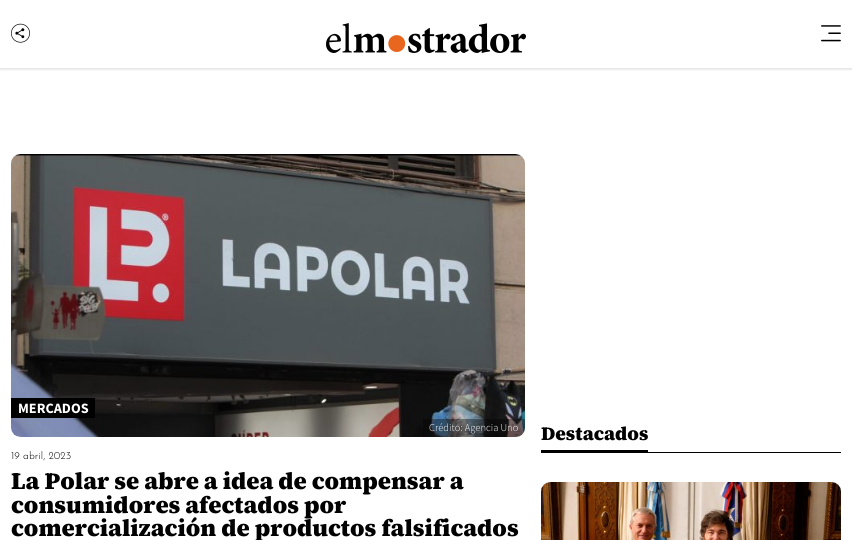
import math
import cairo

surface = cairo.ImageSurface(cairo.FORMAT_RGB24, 852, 540)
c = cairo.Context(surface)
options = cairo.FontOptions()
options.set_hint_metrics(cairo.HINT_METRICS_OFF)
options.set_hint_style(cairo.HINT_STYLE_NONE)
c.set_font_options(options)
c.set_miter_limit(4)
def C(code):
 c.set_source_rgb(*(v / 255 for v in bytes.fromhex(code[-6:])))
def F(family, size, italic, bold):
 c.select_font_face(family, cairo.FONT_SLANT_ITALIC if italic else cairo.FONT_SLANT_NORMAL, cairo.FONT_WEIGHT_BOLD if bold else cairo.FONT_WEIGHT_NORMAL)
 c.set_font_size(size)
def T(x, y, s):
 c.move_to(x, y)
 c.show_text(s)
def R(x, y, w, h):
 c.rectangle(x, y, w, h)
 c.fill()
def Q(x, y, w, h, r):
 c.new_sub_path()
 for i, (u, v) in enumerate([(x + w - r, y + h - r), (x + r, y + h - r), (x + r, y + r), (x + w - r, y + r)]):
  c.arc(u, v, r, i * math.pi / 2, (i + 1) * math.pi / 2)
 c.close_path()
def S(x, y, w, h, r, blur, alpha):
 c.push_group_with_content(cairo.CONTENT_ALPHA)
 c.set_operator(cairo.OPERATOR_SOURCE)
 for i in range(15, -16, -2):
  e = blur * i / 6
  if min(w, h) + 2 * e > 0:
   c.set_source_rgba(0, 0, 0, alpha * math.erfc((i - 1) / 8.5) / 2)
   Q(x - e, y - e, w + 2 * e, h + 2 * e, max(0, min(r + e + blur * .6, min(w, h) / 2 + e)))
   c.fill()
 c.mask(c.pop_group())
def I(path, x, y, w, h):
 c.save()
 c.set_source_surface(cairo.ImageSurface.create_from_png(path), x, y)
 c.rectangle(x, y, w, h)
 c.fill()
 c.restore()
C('ffffff')
c.paint()
c.save()
c.rectangle(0,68,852,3)
c.clip()
C('000000')
S(0,1,852,68,0,1.5,.16)
c.restore()
I('1.png',11,23,19,20)
I('2.png',326,23,200,30)
I('3.png',821,25,20,17)
I('4.png',11,154,514,283)
C('000000')
R(11,398,84,20)
F('Source Sans Pro',14.25,0,1)
C('ffffff')
T(18,413,'MERCADOS')
c.set_source_rgba(0,0,0,0.37)
c.new_path()
c.move_to(423,419)
c.line_to(525,419)
c.line_to(525,428)
c.curve_to(525,433,521,437,516,437)
c.line_to(423,437)
c.close_path()
c.fill()
F('Source Sans Pro Light',10.5,0,0)
C('ffffff')
T(429,431,'Crédito: Agencia Uno')
F('Josefin Sans Light',10.5,0,0)
C('000000')
T(11,459,'19 abril, 2023')
F('Source Serif 4 Black',23.75,0,0)
T(11,489,'La Polar se abre a idea de compensar a')
T(11,513,'consumidores afectados por')
T(11,536,'comercialización de productos falsificados')
R(541,452,300,1)
R(541,450,107,2)
F('Source Serif 4 Black',19,0,0)
T(541,440,'Destacados')
I('5.png',541,482,300,58)
surface.write_to_png('o.png')
